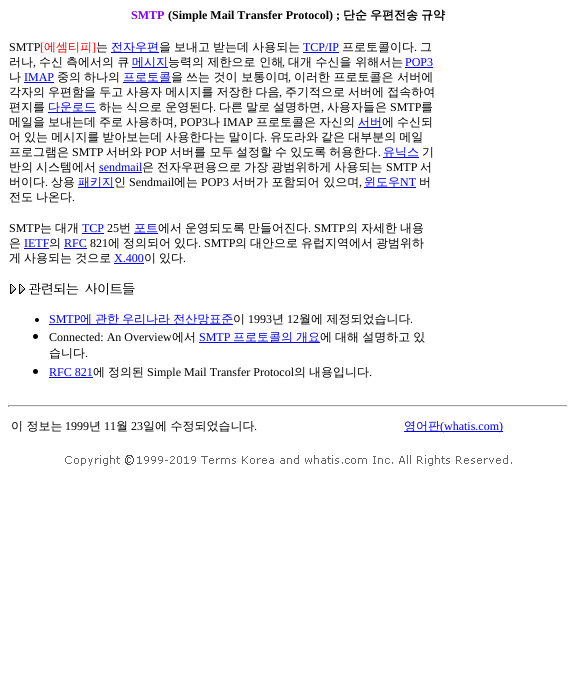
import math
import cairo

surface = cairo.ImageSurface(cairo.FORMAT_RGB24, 576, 680)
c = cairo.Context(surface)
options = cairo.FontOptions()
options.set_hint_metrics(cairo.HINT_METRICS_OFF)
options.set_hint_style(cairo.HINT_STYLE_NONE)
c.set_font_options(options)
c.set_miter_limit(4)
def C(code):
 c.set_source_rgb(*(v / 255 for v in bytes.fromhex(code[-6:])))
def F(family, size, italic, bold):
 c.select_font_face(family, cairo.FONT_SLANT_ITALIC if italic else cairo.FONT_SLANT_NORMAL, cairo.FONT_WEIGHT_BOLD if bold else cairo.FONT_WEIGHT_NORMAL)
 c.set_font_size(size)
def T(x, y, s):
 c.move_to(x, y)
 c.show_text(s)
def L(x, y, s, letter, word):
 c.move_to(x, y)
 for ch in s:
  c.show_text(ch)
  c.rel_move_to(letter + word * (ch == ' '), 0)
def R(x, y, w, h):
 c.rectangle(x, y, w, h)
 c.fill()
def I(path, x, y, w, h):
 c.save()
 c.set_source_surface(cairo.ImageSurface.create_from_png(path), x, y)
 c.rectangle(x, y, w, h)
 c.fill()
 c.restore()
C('ffffff')
c.paint()
F('Liberation Serif',12,0,1)
C('8000ff')
T(131,19,'SMTP')
C('000000')
T(168,19,'(Simple Mail Transfer Protocol) ;')
F('WenQuanYi Zen Hei',12,0,1)
T(343,19,'단순')
T(370,19,'우편전송')
T(421,19,'규약')
F('Liberation Serif',12,0,0)
T(9,51,'SMTP')
C('ff0000')
T(40,51,'[')
F('WenQuanYi Zen Hei Medium',12,0,0)
T(44,51,'에셈티피')
F('Liberation Serif',12,0,0)
T(92,51,']')
F('WenQuanYi Zen Hei Medium',12,0,0)
C('000000')
T(96,51,'는')
C('0000ee')
R(111,52,48,1)
T(111,51,'전자우편')
C('000000')
T(159,51,'을')
L(174,51,'보내고 받는데 사용되는',0,-.5)
F('Liberation Serif',12,0,0)
C('0000ee')
T(303,51,'TCP/IP')
R(303,52,36,1)
F('WenQuanYi Zen Hei Medium',12,0,0)
C('000000')
T(342,51,'프로토콜이다')
F('Liberation Serif',12,0,0)
T(414,51,'.')
F('WenQuanYi Zen Hei Medium',12,0,0)
T(420,51,'그')
T(9,66,'러나')
F('Liberation Serif',12,0,0)
T(33,66,',')
F('WenQuanYi Zen Hei Medium',12,0,0)
L(39,66,'수신 측에서의 큐',0,-.5)
C('0000ee')
R(132,67,36,1)
T(132,66,'메시지')
C('000000')
T(168,66,'능력의 제한으로 인해')
F('Liberation Serif',12,0,0)
T(282,66,',')
F('WenQuanYi Zen Hei Medium',12,0,0)
T(288,66,'대개 수신을 위해서는')
F('Liberation Serif',12,0,0)
C('0000ee')
T(405,66,'POP3')
R(405,67,28,1)
F('WenQuanYi Zen Hei Medium',12,0,0)
C('000000')
T(9,81,'나')
F('Liberation Serif',12,0,0)
C('0000ee')
T(24,81,'IMAP')
R(24,82,30,1)
F('WenQuanYi Zen Hei Medium',12,0,0)
C('000000')
L(57,81,'중의 하나의',0,-.5)
C('0000ee')
R(123,82,48,1)
T(123,81,'프로토콜')
C('000000')
T(171,81,'을')
T(186,81,'쓰는 것이 보통이며')
F('Liberation Serif',12,0,0)
T(288,81,',')
F('WenQuanYi Zen Hei Medium',12,0,0)
T(294,81,'이러한 프로토콜은 서버에')
L(9,96,'각자의 우편함을 두고 사용자 메시지를 저장한 다음',0,-.5)
F('Liberation Serif',12,0,0)
T(279,96,',')
F('WenQuanYi Zen Hei Medium',12,0,0)
L(285,96,'주기적으로 서버에 접속하여',0,-.5)
T(9,111,'편지를')
C('0000ee')
R(48,112,48,1)
T(48,111,'다운로드')
C('000000')
L(99,111,'하는 식으로 운영된다',0,-.5)
F('Liberation Serif',12,0,0)
T(213,111,'.')
F('WenQuanYi Zen Hei Medium',12,0,0)
L(219,111,'다른 말로',0,-.5)
T(273,111,'설명하면')
F('Liberation Serif',12,0,0)
T(321,111,',')
F('WenQuanYi Zen Hei Medium',12,0,0)
T(327,111,'사용자들은')
F('Liberation Serif',12,0,0)
T(390,111,'SMTP')
F('WenQuanYi Zen Hei Medium',12,0,0)
T(421,111,'를')
T(9,126,'메일을')
T(48,126,'보내는데')
T(99,126,'주로')
T(126,126,'사용하며')
F('Liberation Serif',12,0,0)
T(174,126,', POP3')
F('WenQuanYi Zen Hei Medium',12,0,0)
T(208,126,'나')
F('Liberation Serif',12,0,0)
T(223,126,'IMAP')
F('WenQuanYi Zen Hei Medium',12,0,0)
T(256,126,'프로토콜은')
T(319,126,'자신의')
C('0000ee')
R(358,127,24,1)
T(358,126,'서버')
C('000000')
T(382,126,'에')
T(397,126,'수신되')
L(9,141,'어 있는 메시지를 받아보는데 사용한다는 말이다',0,-.5)
F('Liberation Serif',12,0,0)
T(264,141,'.')
F('WenQuanYi Zen Hei Medium',12,0,0)
L(270,141,'유도라와 같은 대부분의 메일',0,-.5)
T(9,156,'프로그램은')
F('Liberation Serif',12,0,0)
T(72,156,'SMTP')
F('WenQuanYi Zen Hei Medium',12,0,0)
T(106,156,'서버와')
F('Liberation Serif',12,0,0)
T(145,156,'POP')
F('WenQuanYi Zen Hei Medium',12,0,0)
T(170,156,'서버를 모두')
L(236,156,'설정할 수 있도록 허용한다',0,-.5)
F('Liberation Serif',12,0,0)
T(378,156,'.')
C('0000ee')
R(383,157,36,1)
F('WenQuanYi Zen Hei Medium',12,0,0)
T(383,156,'유닉스')
C('000000')
T(422,156,'기')
L(9,171,'반의 시스템에서',0,-.5)
F('Liberation Serif',12,0,0)
C('0000ee')
T(99,171,'sendmail')
R(99,172,43,1)
F('WenQuanYi Zen Hei Medium',12,0,0)
C('000000')
L(142,171,'은 전자우편용으로 가장 광범위하게 사용되는',0,-.5)
F('Liberation Serif',12,0,0)
T(386,171,'SMTP')
F('WenQuanYi Zen Hei Medium',12,0,0)
T(420,171,'서')
T(9,186,'버이다')
F('Liberation Serif',12,0,0)
T(45,186,'.')
F('WenQuanYi Zen Hei Medium',12,0,0)
T(51,186,'상용')
C('0000ee')
R(78,187,36,1)
T(78,186,'패키지')
C('000000')
T(114,186,'인')
F('Liberation Serif',12,0,0)
T(129,186,'Sendmail')
F('WenQuanYi Zen Hei Medium',12,0,0)
T(174,186,'에는')
F('Liberation Serif',12,0,0)
T(201,186,'POP3')
F('WenQuanYi Zen Hei Medium',12,0,0)
T(232,186,'서버가 포함되어 있으며')
F('Liberation Serif',12,0,0)
T(359,186,',')
C('0000ee')
R(364,187,52,1)
F('WenQuanYi Zen Hei Medium',12,0,0)
T(364,186,'윈도우')
F('Liberation Serif',12,0,0)
T(400,186,'NT')
F('WenQuanYi Zen Hei Medium',12,0,0)
C('000000')
T(419,186,'버')
L(9,201,'전도 나온다',0,-.5)
F('Liberation Serif',12,0,0)
T(72,201,'.')
T(9,232,'SMTP')
F('WenQuanYi Zen Hei Medium',12,0,0)
L(40,232,'는 대개',0,-.5)
F('Liberation Serif',12,0,0)
C('0000ee')
T(82,232,'TCP')
R(82,233,22,1)
C('000000')
T(107,232,'25')
F('WenQuanYi Zen Hei Medium',12,0,0)
T(119,232,'번')
C('0000ee')
T(134,232,'포트')
R(134,233,24,1)
C('000000')
T(158,232,'에서')
T(185,232,'운영되도록')
T(248,232,'만들어진다')
F('Liberation Serif',12,0,0)
T(308,232,'. SMTP')
F('WenQuanYi Zen Hei Medium',12,0,0)
T(346,232,'의')
T(361,232,'자세한')
T(400,232,'내용')
T(9,247,'은')
F('Liberation Serif',12,0,0)
C('0000ee')
T(24,247,'IETF')
R(24,248,25,1)
F('WenQuanYi Zen Hei Medium',12,0,0)
C('000000')
T(49,247,'의')
F('Liberation Serif',12,0,0)
C('0000ee')
T(64,247,'RFC')
R(64,248,23,1)
C('000000')
T(90,247,'821')
F('WenQuanYi Zen Hei Medium',12,0,0)
T(108,247,'에')
T(123,247,'정의되어')
T(174,247,'있다')
F('Liberation Serif',12,0,0)
T(198,247,'. SMTP')
F('WenQuanYi Zen Hei Medium',12,0,0)
T(235,247,'의')
T(250,247,'대안으로')
T(301,247,'유럽지역에서')
T(376,247,'광범위하')
L(9,262,'게 사용되는 것으로',0,-.5)
F('Liberation Serif',12,0,0)
C('0000ee')
T(114,262,'X.400')
R(114,263,30,1)
F('WenQuanYi Zen Hei Medium',12,0,0)
C('000000')
T(144,262,'이')
T(159,262,'있다')
F('Liberation Serif',12,0,0)
T(183,262,'.')
I('1.png',10,282,125,13)
c.arc(37,320,2,0,2 * math.pi)
c.fill()
C('0000ee')
T(49,323,'SMTP')
R(49,324,184,1)
F('WenQuanYi Zen Hei Medium',12,0,0)
T(80,323,'에')
L(95,323,'관한 우리나라 전산망표준',0,-.5)
C('000000')
T(233,323,'이')
F('Liberation Serif',12,0,0)
T(248,323,'1993')
F('WenQuanYi Zen Hei Medium',12,0,0)
T(272,323,'년')
F('Liberation Serif',12,0,0)
T(287,323,'12')
F('WenQuanYi Zen Hei Medium',12,0,0)
T(299,323,'월에 제정되었습니다')
F('Liberation Serif',12,0,0)
T(410,323,'.')
c.new_path()
c.arc(35.5,336.5,2.5,0,2 * math.pi)
c.fill()
T(49,341,'Connected: An Overview')
F('WenQuanYi Zen Hei Medium',12,0,0)
T(172,341,'에서')
F('Liberation Serif',12,0,0)
C('0000ee')
T(199,341,'SMTP')
R(199,342,121,1)
F('WenQuanYi Zen Hei Medium',12,0,0)
L(233,341,'프로토콜의 개요',0,-.5)
C('000000')
L(320,341,'에 대해 설명하고 있',0,-.5)
T(49,357,'습니다')
F('Liberation Serif',12,0,0)
T(85,357,'.')
c.new_path()
c.arc(35.5,371.5,2.5,0,2 * math.pi)
c.fill()
C('0000ee')
T(49,376,'RFC 821')
R(49,377,44,1)
F('WenQuanYi Zen Hei Medium',12,0,0)
C('000000')
T(93,376,'에')
T(108,376,'정의된')
F('Liberation Serif',12,0,0)
T(147,376,'Simple Mail Transfer Protocol')
F('WenQuanYi Zen Hei Medium',12,0,0)
T(294,376,'의')
T(309,376,'내용입니다')
F('Liberation Serif',12,0,0)
T(369,376,'.')
C('9f9f9f')
R(8,405,560,1)
C('eeeeee')
R(567,405,1,2)
R(8,406,560,1)
C('9f9f9f')
R(8,405,1,2)
F('WenQuanYi Zen Hei Medium',12,0,0)
C('000000')
T(11,430,'이 정보는')
F('Liberation Serif',12,0,0)
T(65,430,'1999')
F('WenQuanYi Zen Hei Medium',12,0,0)
T(89,430,'년')
F('Liberation Serif',12,0,0)
T(104,430,'11')
F('WenQuanYi Zen Hei Medium',12,0,0)
T(116,430,'월')
F('Liberation Serif',12,0,0)
T(131,430,'23')
F('WenQuanYi Zen Hei Medium',12,0,0)
T(143,430,'일에 수정되었습니다')
F('Liberation Serif',12,0,0)
T(254,430,'.')
C('0000ee')
R(404,431,99,1)
F('WenQuanYi Zen Hei Medium',12,0,0)
T(404,430,'영어판')
F('Liberation Serif',12,0,0)
T(440,430,'(whatis.com)')
I('2.png',65,455,447,11)
surface.write_to_png('o.png')
